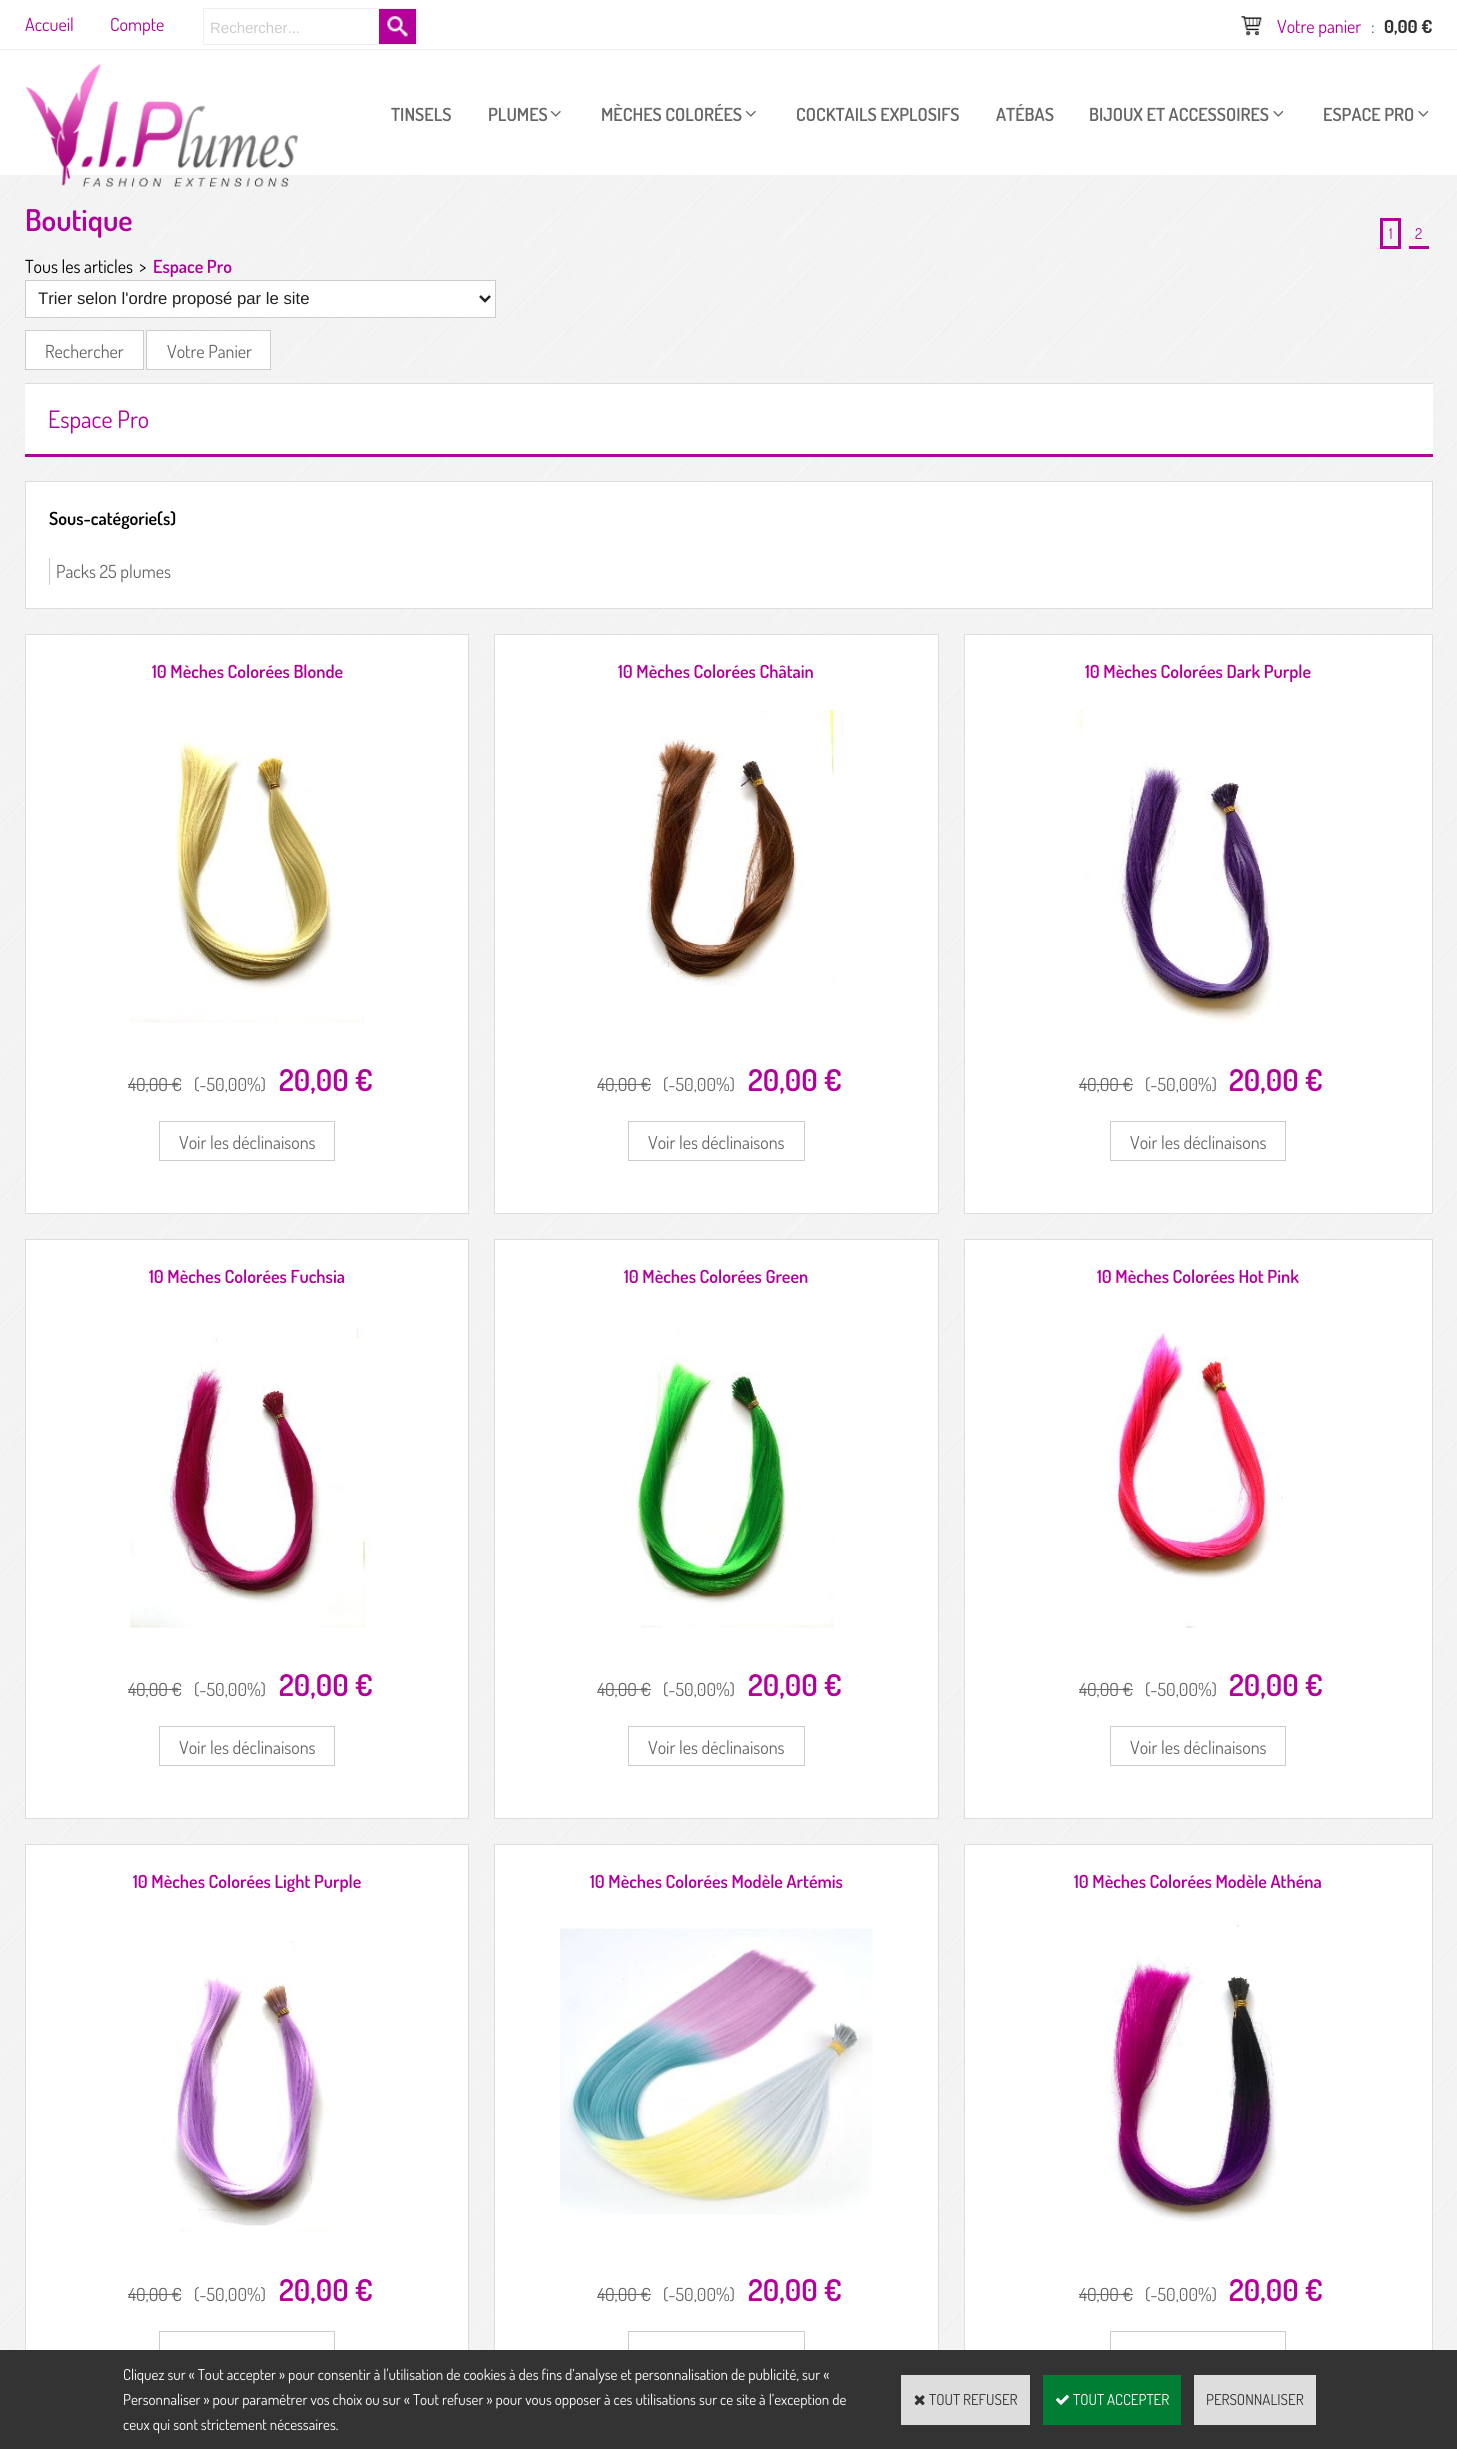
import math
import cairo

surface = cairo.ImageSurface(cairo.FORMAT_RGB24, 1457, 2449)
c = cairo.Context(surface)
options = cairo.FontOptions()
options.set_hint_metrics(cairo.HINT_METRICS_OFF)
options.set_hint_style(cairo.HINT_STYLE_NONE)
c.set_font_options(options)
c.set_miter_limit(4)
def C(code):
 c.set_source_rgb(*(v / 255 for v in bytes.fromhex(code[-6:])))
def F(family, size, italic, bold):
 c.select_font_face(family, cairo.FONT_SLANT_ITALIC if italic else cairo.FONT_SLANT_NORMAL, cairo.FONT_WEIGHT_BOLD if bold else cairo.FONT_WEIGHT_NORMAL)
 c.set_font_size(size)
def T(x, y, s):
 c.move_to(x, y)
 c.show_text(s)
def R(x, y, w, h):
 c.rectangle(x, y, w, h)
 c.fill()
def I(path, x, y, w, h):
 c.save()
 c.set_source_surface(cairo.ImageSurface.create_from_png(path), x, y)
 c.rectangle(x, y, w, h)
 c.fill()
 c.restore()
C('ffffff')
c.paint()
C('eeeeee')
R(0,49,1457,1)
F('Dosis',18,0,0)
C('b3009b')
T(25,31,'Accueil')
T(110,31,'Compte')
c.rectangle(203.5,8.5,214,36)
C('eeeeee')
c.set_line_width(1)
c.stroke()
F('Liberation Sans',15,0,0)
C('cccccc')
T(210,33,'Rechercher...')
C('b3009b')
R(379,9,37,35)
I('1.png',387,16,21,21)
I('2.png',1241,16,21,20)
F('Dosis',18,0,0)
T(1277,33,'Votre panier')
C('666666')
T(1371,33,':')
F('Dosis',18,0,1)
C('333333')
T(1384,33,'0,00 €')
I('6.png',0,175,1457,2175)
I('3.png',26,63,272,124)
F('Dosis SemiBold',18,0,0)
C('666666')
T(391,121,'TINSELS')
T(488,121,'PLUMES')
I('4.png',550,110,11,7)
T(601,121,'MÈCHES COLORÉES')
I('4.png',745,110,11,7)
T(796,121,'COCKTAILS EXPLOSIFS')
T(996,121,'ATÉBAS')
T(1089,121,'BIJOUX ET ACCESSOIRES')
I('5.png',1273,110,11,7)
T(1323,121,'ESPACE PRO')
I('5.png',1418,110,11,7)
F('Dosis SemiBold',30,0,0)
C('b3009b')
T(25,231,'Boutique')
c.rectangle(1381.5,219.5,18,28)
c.set_line_width(3)
c.stroke()
F('Dosis',15,0,0)
T(1389,239,'1')
T(1415,239,'2')
R(1409,246,20,3)
F('Dosis',18,0,0)
C('000000')
T(25,273,'Tous les articles')
T(139,273,'>')
F('Dosis SemiBold',18,0,0)
C('b3009b')
T(153,273,'Espace Pro')
C('ffffff')
c.rectangle(25.5,280.5,470,37)
c.fill_preserve()
C('cccccc')
c.set_line_width(1)
c.stroke()
c.new_path()
c.move_to(480,296)
c.line_to(485,301)
c.line_to(490,296)
C('222222')
c.set_line_width(2.5)
c.stroke()
F('Liberation Sans',16.7,0,0)
T(38,304,'Trier selon l\'ordre proposé par le site')
C('ffffff')
c.rectangle(25.5,330.5,118,39)
c.fill_preserve()
C('cccccc')
c.set_line_width(1)
c.stroke()
F('Dosis',18,0,0)
C('666666')
T(45,358,'Rechercher')
C('ffffff')
c.rectangle(146.5,330.5,124,39)
c.fill_preserve()
C('cccccc')
c.stroke()
C('666666')
T(167,358,'Votre Panier')
C('ffffff')
R(25,384,1408,70)
C('dddddd')
R(25,383,1408,1)
C('b3009b')
R(25,454,1408,3)
F('Dosis',24,0,0)
T(48,428,'Espace Pro')
C('ffffff')
c.rectangle(25.5,481.5,1407,127)
c.fill_preserve()
C('dddddd')
c.stroke()
F('Dosis SemiBold',18,0,0)
C('000000')
T(49,525,'Sous-catégorie(s)')
C('cccccc')
R(49,558,1,27)
F('Dosis',18,0,0)
C('666666')
T(56,578,'Packs 25 plumes')
C('ffffff')
c.rectangle(25.5,634.5,443,579)
c.fill_preserve()
C('dddddd')
c.stroke()
F('Dosis SemiBold',18,0,0)
C('b3009b')
T(152,678,'10 Mèches Colorées Blonde')
I('7.png',129,739,235,284)
F('Dosis',18,0,0)
C('666666')
T(128,1091,'40,00 €')
R(128,1084,53,1)
T(194,1091,'(-50,00%)')
F('Dosis SemiBold',30,0,0)
C('b3009b')
T(279,1091,'20,00 €')
c.rectangle(159.5,1121.5,175,39)
C('cccccc')
c.stroke()
F('Dosis',18,0,0)
C('666666')
T(179,1149,'Voir les déclinaisons')
C('ffffff')
c.rectangle(494.5,634.5,444,579)
c.fill_preserve()
C('dddddd')
c.stroke()
F('Dosis SemiBold',18,0,0)
C('b3009b')
T(618,678,'10 Mèches Colorées Châtain')
I('8.png',646,710,200,276)
F('Dosis',18,0,0)
C('666666')
T(597,1091,'40,00 €')
R(598,1084,53,1)
T(663,1091,'(-50,00%)')
F('Dosis SemiBold',30,0,0)
C('b3009b')
T(748,1091,'20,00 €')
c.rectangle(628.5,1121.5,176,39)
C('cccccc')
c.stroke()
F('Dosis',18,0,0)
C('666666')
T(648,1149,'Voir les déclinaisons')
C('ffffff')
c.rectangle(964.5,634.5,468,579)
c.fill_preserve()
C('dddddd')
c.stroke()
F('Dosis SemiBold',18,0,0)
C('b3009b')
T(1085,678,'10 Mèches Colorées Dark Purple')
I('9.png',1075,710,199,313)
F('Dosis',18,0,0)
C('666666')
T(1079,1091,'40,00 €')
R(1079,1084,54,1)
T(1145,1091,'(-50,00%)')
F('Dosis SemiBold',30,0,0)
C('b3009b')
T(1229,1091,'20,00 €')
c.rectangle(1110.5,1121.5,175,39)
C('cccccc')
c.stroke()
F('Dosis',18,0,0)
C('666666')
T(1130,1149,'Voir les déclinaisons')
C('ffffff')
c.rectangle(25.5,1239.5,443,579)
c.fill_preserve()
C('dddddd')
c.stroke()
F('Dosis SemiBold',18,0,0)
C('b3009b')
T(149,1283,'10 Mèches Colorées Fuchsia')
I('10.png',129,1328,245,300)
F('Dosis',18,0,0)
C('666666')
T(128,1696,'40,00 €')
R(128,1689,53,1)
T(194,1696,'(-50,00%)')
F('Dosis SemiBold',30,0,0)
C('b3009b')
T(279,1696,'20,00 €')
c.rectangle(159.5,1726.5,175,39)
C('cccccc')
c.stroke()
F('Dosis',18,0,0)
C('666666')
T(179,1754,'Voir les déclinaisons')
C('ffffff')
c.rectangle(494.5,1239.5,444,579)
c.fill_preserve()
C('dddddd')
c.stroke()
F('Dosis SemiBold',18,0,0)
C('b3009b')
T(624,1283,'10 Mèches Colorées Green')
I('11.png',631,1329,203,299)
F('Dosis',18,0,0)
C('666666')
T(597,1696,'40,00 €')
R(598,1689,53,1)
T(663,1696,'(-50,00%)')
F('Dosis SemiBold',30,0,0)
C('b3009b')
T(748,1696,'20,00 €')
c.rectangle(628.5,1726.5,176,39)
C('cccccc')
c.stroke()
F('Dosis',18,0,0)
C('666666')
T(648,1754,'Voir les déclinaisons')
C('ffffff')
c.rectangle(964.5,1239.5,468,579)
c.fill_preserve()
C('dddddd')
c.stroke()
F('Dosis SemiBold',18,0,0)
C('b3009b')
T(1097,1283,'10 Mèches Colorées Hot Pink')
I('12.png',1112,1329,171,299)
F('Dosis',18,0,0)
C('666666')
T(1079,1696,'40,00 €')
R(1079,1689,54,1)
T(1145,1696,'(-50,00%)')
F('Dosis SemiBold',30,0,0)
C('b3009b')
T(1229,1696,'20,00 €')
c.rectangle(1110.5,1726.5,175,39)
C('cccccc')
c.stroke()
F('Dosis',18,0,0)
C('666666')
T(1130,1754,'Voir les déclinaisons')
C('ffffff')
R(26,1845,442,505)
c.rectangle(25.5,1844.5,443,579)
C('dddddd')
c.stroke()
F('Dosis SemiBold',18,0,0)
C('b3009b')
T(133,1888,'10 Mèches Colorées Light Purple')
I('13.png',151,1941,182,292)
F('Dosis',18,0,0)
C('666666')
T(128,2301,'40,00 €')
R(128,2294,53,1)
T(194,2301,'(-50,00%)')
F('Dosis SemiBold',30,0,0)
C('b3009b')
T(279,2301,'20,00 €')
c.rectangle(159.5,2331.5,175,39)
C('cccccc')
c.stroke()
C('ffffff')
R(495,1845,443,505)
c.rectangle(494.5,1844.5,444,579)
C('dddddd')
c.stroke()
F('Dosis SemiBold',18,0,0)
C('b3009b')
T(590,1888,'10 Mèches Colorées Modèle Artémis')
I('14.png',560,1928,313,287)
F('Dosis',18,0,0)
C('666666')
T(597,2301,'40,00 €')
R(598,2294,53,1)
T(663,2301,'(-50,00%)')
F('Dosis SemiBold',30,0,0)
C('b3009b')
T(748,2301,'20,00 €')
c.rectangle(628.5,2331.5,176,39)
C('cccccc')
c.stroke()
C('ffffff')
R(965,1845,467,505)
c.rectangle(964.5,1844.5,468,579)
C('dddddd')
c.stroke()
F('Dosis SemiBold',18,0,0)
C('b3009b')
T(1074,1888,'10 Mèches Colorées Modèle Athéna')
I('15.png',1107,1921,170,301)
F('Dosis',18,0,0)
C('666666')
T(1079,2301,'40,00 €')
R(1079,2294,54,1)
T(1145,2301,'(-50,00%)')
F('Dosis SemiBold',30,0,0)
C('b3009b')
T(1229,2301,'20,00 €')
c.rectangle(1110.5,2331.5,175,39)
C('cccccc')
c.stroke()
C('333333')
R(0,2350,1457,99)
F('Dosis',15,0,0)
C('ffffff')
T(123,2380,'Cliquez sur « Tout accepter » pour consentir à l\'utilisation de cookies à des fins d’analyse et personnalisation de publicité, sur «')
T(123,2405,'Personnaliser » pour paramétrer vos choix ou sur « Tout refuser » pour vous opposer à ces utilisations sur ce site à l’exception de')
T(123,2430,'ceux qui sont strictement nécessaires.')
C('dddddd')
R(901,2375,129,50)
I('16.png',914,2395,11,11)
C('333333')
T(929,2405,'TOUT REFUSER')
C('007e33')
R(1043,2375,138,50)
I('17.png',1056,2395,13,10)
C('ffffff')
T(1073,2405,'TOUT ACCEPTER')
C('dddddd')
R(1194,2375,122,50)
C('333333')
T(1206,2405,'PERSONNALISER')
surface.write_to_png('o.png')
